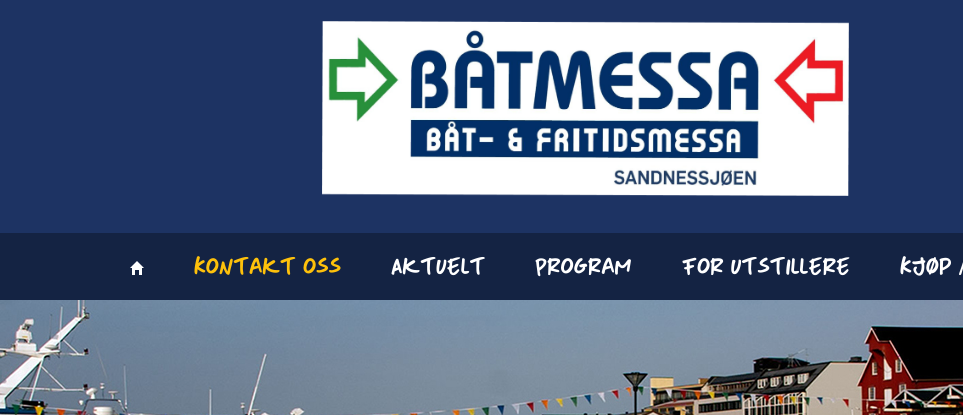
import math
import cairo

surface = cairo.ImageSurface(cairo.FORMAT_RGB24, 963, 415)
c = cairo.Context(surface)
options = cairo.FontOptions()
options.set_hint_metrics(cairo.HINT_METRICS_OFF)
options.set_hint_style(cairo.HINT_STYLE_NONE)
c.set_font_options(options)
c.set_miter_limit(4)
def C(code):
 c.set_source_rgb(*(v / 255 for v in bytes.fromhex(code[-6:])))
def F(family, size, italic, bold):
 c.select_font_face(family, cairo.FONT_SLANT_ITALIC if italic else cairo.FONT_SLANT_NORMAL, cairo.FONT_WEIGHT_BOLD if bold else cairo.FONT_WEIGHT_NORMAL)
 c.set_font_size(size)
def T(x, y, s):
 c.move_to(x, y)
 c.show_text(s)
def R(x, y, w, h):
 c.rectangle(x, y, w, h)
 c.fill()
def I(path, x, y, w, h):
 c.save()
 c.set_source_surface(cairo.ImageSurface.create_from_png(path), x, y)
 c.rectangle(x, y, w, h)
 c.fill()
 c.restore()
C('1d3363')
c.paint()
I('1.png',322,21,527,175)
C('142343')
R(0,233,963,67)
I('2.png',130,261,14,14)
F('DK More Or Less',25,0,0)
C('fec10b')
T(194,275,'Kontakt oss')
C('ffffff')
T(391,275,'Aktuelt')
T(535,275,'Program')
T(682,275,'For utstillere')
T(900,275,'Kjøp /')
I('3.png',0,300,963,115)
surface.write_to_png('o.png')
